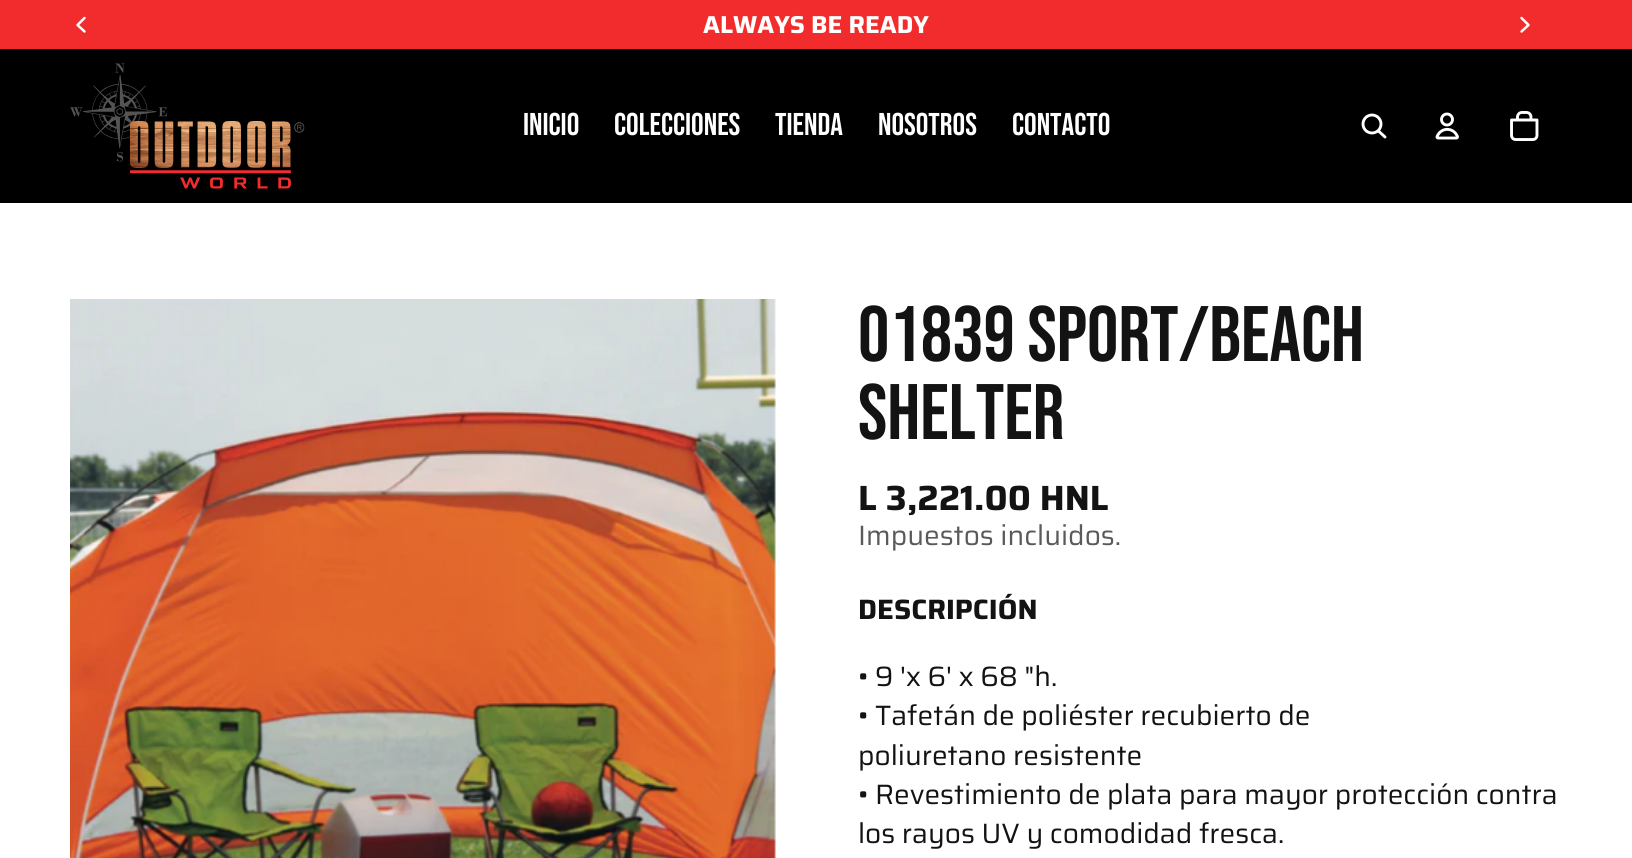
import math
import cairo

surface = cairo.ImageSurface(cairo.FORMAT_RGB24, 1632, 858)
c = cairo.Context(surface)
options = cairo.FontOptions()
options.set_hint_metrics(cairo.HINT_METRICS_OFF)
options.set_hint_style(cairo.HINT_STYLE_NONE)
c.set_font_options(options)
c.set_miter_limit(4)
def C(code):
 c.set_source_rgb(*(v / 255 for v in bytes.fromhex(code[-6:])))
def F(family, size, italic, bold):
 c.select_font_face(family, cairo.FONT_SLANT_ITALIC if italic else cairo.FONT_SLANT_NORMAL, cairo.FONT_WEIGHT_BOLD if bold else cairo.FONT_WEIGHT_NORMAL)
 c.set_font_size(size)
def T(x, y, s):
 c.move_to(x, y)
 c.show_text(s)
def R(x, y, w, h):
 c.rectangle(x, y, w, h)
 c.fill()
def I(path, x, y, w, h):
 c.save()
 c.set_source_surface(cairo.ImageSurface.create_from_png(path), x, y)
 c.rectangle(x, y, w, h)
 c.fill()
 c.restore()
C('ffffff')
c.paint()
C('f22c2c')
R(0,0,1632,49)
F('Saira',24.5,0,1)
C('ffffff')
T(703,33,'ALWAYS BE READY')
c.new_path()
c.move_to(84.5,18)
c.line_to(77.5,25)
c.line_to(84.5,31.5)
c.set_line_width(2.5)
c.set_line_cap(cairo.LINE_CAP_ROUND)
c.set_line_join(cairo.LINE_JOIN_ROUND)
c.stroke()
c.new_path()
c.move_to(1521.5,18)
c.line_to(1528.5,25)
c.line_to(1521.5,31.5)
c.stroke()
C('000000')
R(0,49,1632,154)
I('1.png',70,63,235,126)
F('Bebas Neue',31.5,0,0)
C('ffffff')
T(523,135,'INICIO')
T(614,135,'COLECCIONES')
T(775,135,'TIENDA')
T(878,135,'NOSOTROS')
T(1012,135,'CONTACTO')
c.new_path()
c.arc(1372,124,9,0,2 * math.pi)
c.set_line_width(2.9)
c.set_line_cap(cairo.LINE_CAP_BUTT)
c.set_line_join(cairo.LINE_JOIN_MITER)
c.stroke()
c.new_path()
c.move_to(1378.5,131)
c.line_to(1385,137)
c.set_line_cap(cairo.LINE_CAP_ROUND)
c.set_line_join(cairo.LINE_JOIN_ROUND)
c.stroke()
I('2.png',1435,112,24,28)
I('3.png',1510,111,29,30)
I('4.png',70,299,706,559)
F('Bebas Neue',78.5,0,0)
C('131313')
T(858,361,'01839 SPORT/BEACH')
T(858,439,'SHELTER')
F('Saira',35,0,1)
T(858,510,'L 3,221.00 HNL')
F('Saira',28,0,0)
C('5a5a5a')
T(858,545,'Impuestos incluidos.')
F('Saira',28,0,1)
C('131313')
T(858,619,'DESCRIPCIÓN')
F('Saira',28,0,0)
T(858,686,'• 9 \'x 6\' x 68 "h.')
T(858,725,'• Tafetán de poliéster recubierto de')
T(858,765,'poliuretano resistente')
T(858,804,'• Revestimiento de plata para mayor protección contra')
T(858,843,'los rayos UV y comodidad fresca.')
surface.write_to_png('o.png')
